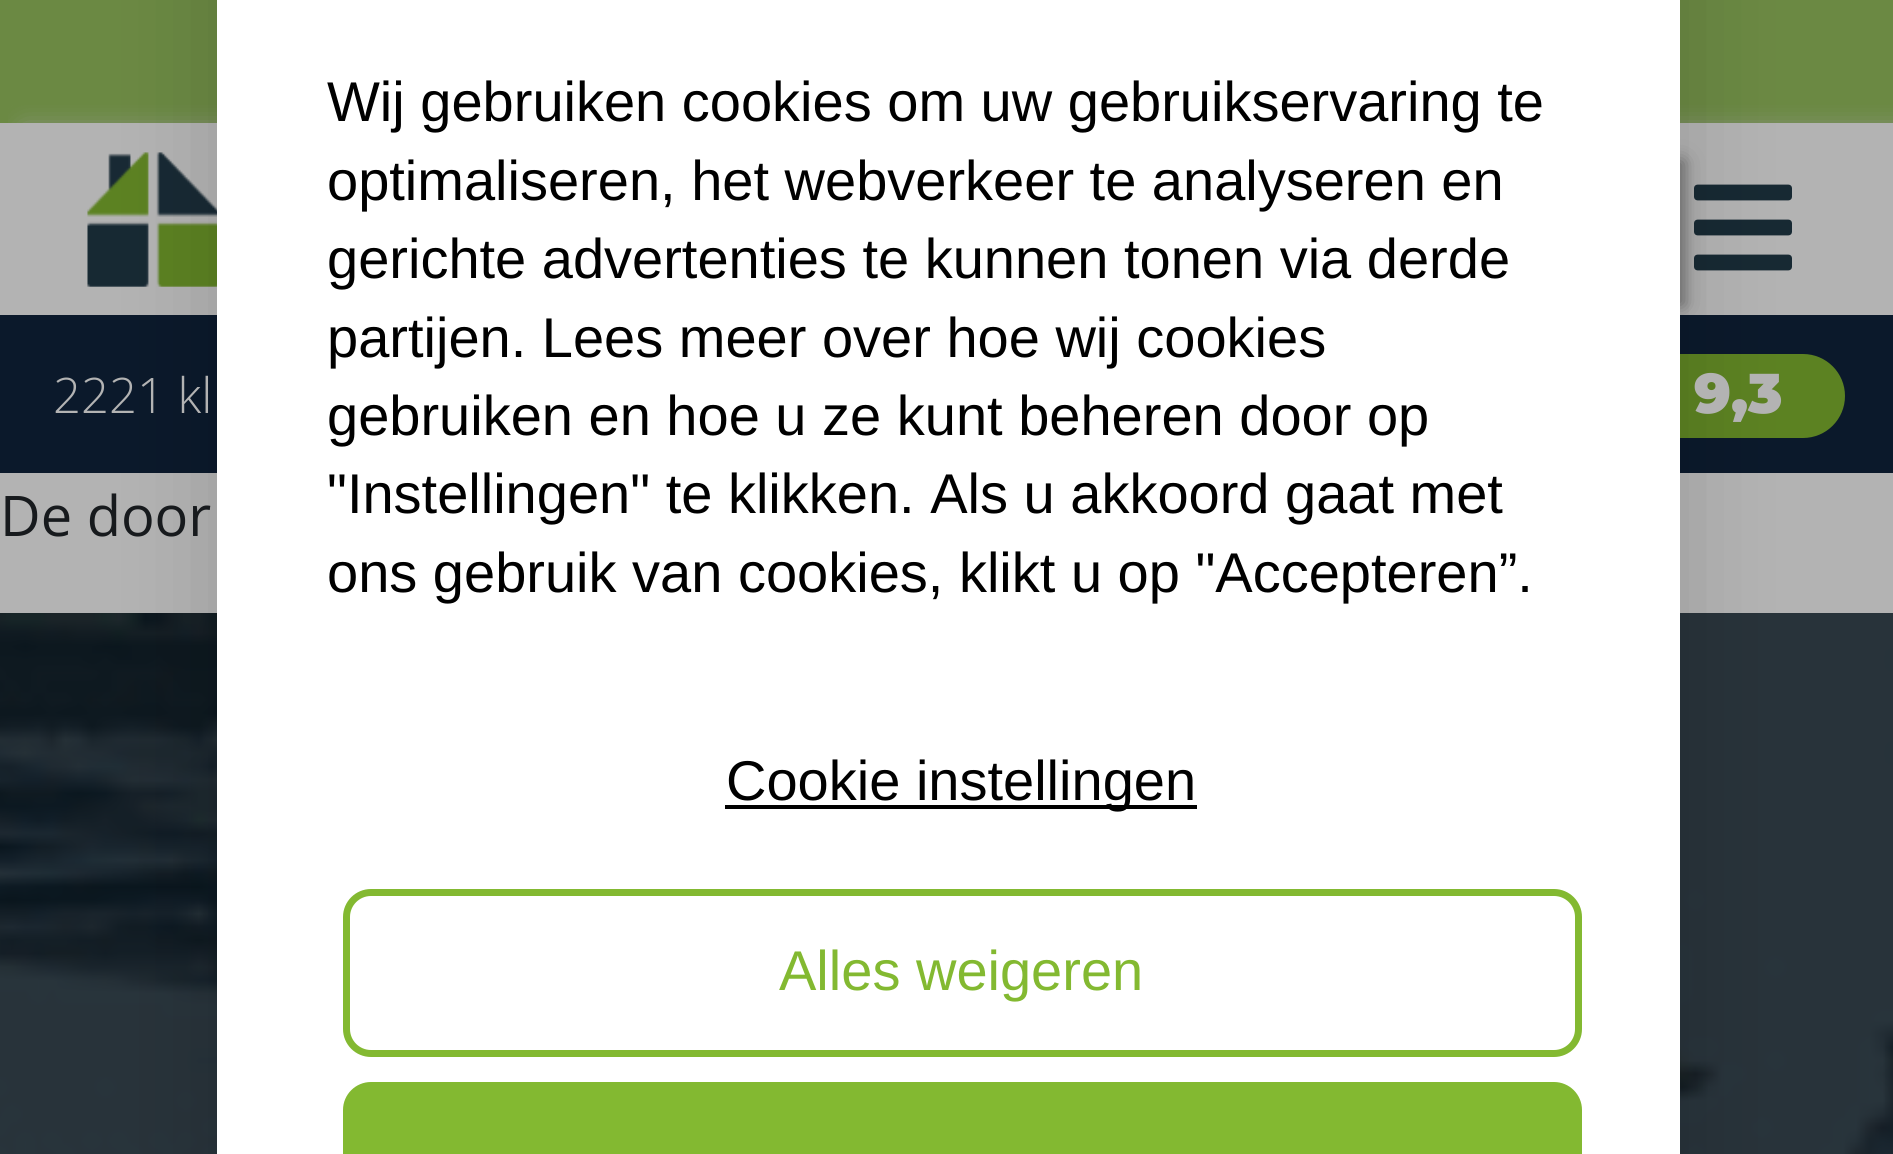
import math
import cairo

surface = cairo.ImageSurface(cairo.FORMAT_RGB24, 1893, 1154)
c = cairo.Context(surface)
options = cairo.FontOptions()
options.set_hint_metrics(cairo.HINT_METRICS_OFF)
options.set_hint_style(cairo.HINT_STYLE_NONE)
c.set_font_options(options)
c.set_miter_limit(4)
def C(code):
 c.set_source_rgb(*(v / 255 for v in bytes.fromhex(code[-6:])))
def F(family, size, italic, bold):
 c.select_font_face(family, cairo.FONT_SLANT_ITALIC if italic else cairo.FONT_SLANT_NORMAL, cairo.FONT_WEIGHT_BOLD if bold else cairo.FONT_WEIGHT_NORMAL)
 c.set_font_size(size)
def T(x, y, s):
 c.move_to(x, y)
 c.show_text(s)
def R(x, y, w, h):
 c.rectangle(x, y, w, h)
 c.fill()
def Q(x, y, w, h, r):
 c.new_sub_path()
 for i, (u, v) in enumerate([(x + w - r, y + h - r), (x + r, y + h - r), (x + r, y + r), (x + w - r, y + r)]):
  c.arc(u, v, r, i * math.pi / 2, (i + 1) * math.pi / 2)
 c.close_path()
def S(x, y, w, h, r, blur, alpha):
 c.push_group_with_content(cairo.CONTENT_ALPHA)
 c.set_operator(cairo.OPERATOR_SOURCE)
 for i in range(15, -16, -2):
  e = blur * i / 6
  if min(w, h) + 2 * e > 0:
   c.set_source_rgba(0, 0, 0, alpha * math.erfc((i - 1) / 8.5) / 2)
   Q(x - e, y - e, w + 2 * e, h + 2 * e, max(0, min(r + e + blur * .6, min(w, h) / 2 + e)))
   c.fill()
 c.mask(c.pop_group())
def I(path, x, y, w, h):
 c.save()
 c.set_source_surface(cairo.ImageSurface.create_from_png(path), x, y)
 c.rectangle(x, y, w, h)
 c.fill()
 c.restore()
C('b3b3b3')
c.paint()
C('6b8943')
R(0,0,1893,123)
c.save()
c.rectangle(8,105,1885,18)
c.clip()
C('999999')
S(25,130,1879,178,0,12,1)
c.restore()
I('1.png',87,152,130,135)
C('000000')
S(1421,161,263,144,0,9,.41)
I('2.png',1694,184,98,87)
C('0b192b')
R(0,315,1893,158)
C('5c8222')
Q(1631,354,214,84,42)
c.fill()
I('3.png',0,613,1893,541)
C('000000')
S(217,-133,1463,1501,56,52.5,.15)
C('ffffff')
R(217,0,1463,1154)
F('Liberation Sans',56,0,0)
C('000000')
T(327,121,'Wij gebruiken cookies om uw gebruikservaring te')
T(327,200,'optimaliseren, het webverkeer te analyseren en')
T(327,278,'gerichte advertenties te kunnen tonen via derde')
T(327,357,'partijen. Lees meer over hoe wij cookies')
T(327,435,'gebruiken en hoe u ze kunt beheren door op')
T(327,513,'"Instellingen" te klikken. Als u akkoord gaat met')
T(327,592,'ons gebruik van cookies, klikt u op "Accepteren”.')
R(725,805,472,4)
T(726,800,'Cookie instellingen')
Q(346.5,892.5,1232,161,24.5)
C('83b931')
c.set_line_width(7)
c.stroke()
T(779,990,'Alles weigeren')
Q(346.5,1085.5,1232,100,24.5)
c.fill_preserve()
c.stroke()
F('Open Sans Light',49,0,0)
C('b3b3b3')
T(53,413,'2221 kl')
F('Montserrat Black',56,0,0)
T(1694,413,'9,3')
F('Open Sans',56,0,0)
C('171a1d')
T(0,536,'De door')
surface.write_to_png('o.png')
